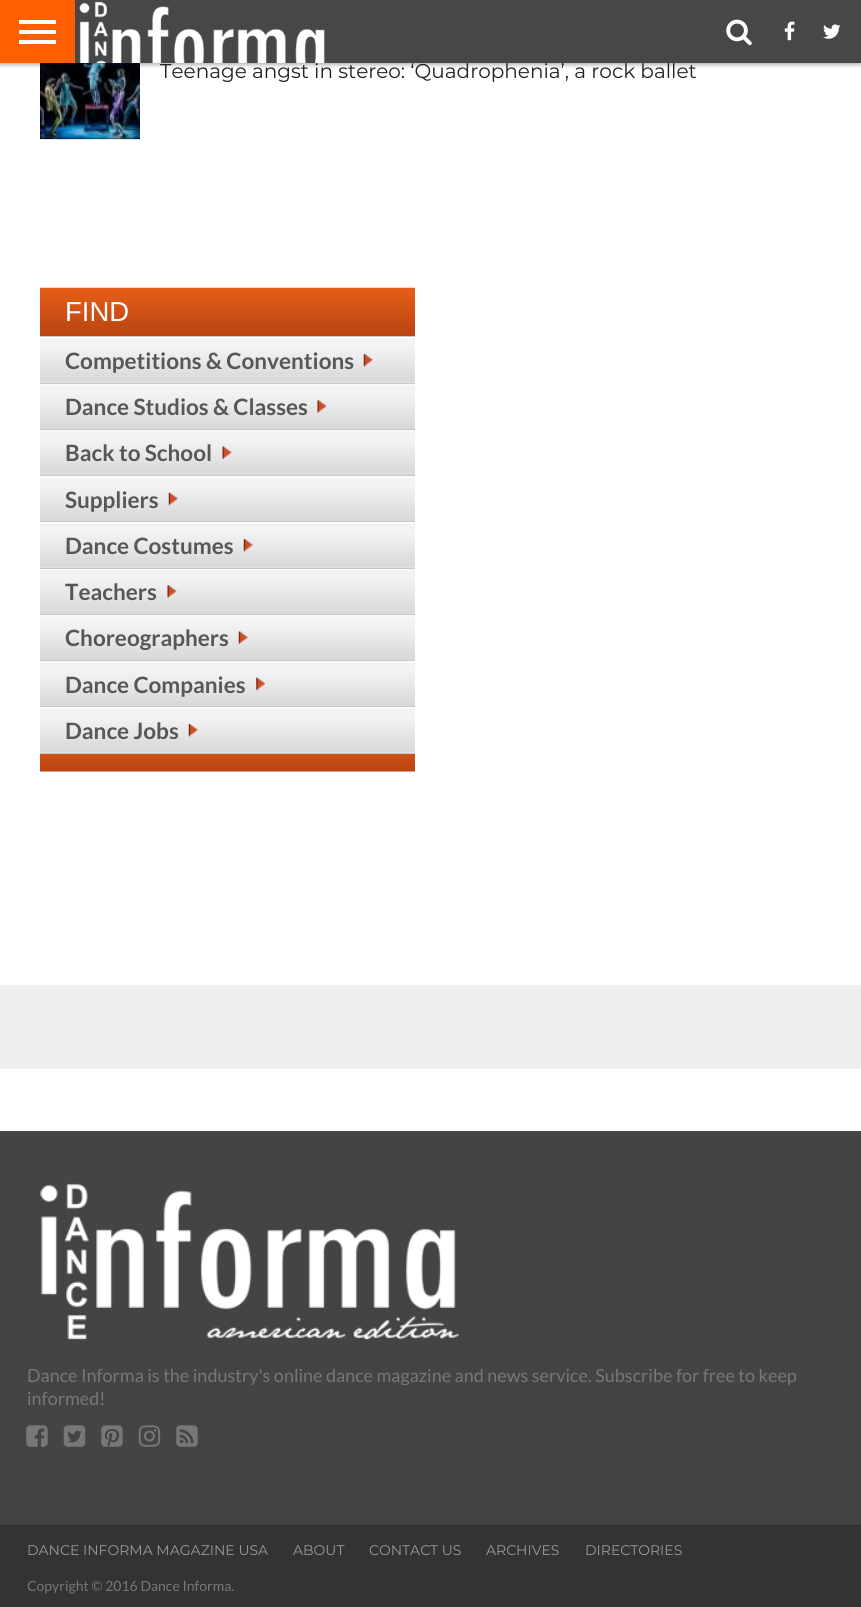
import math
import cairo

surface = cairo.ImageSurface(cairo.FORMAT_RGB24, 861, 1607)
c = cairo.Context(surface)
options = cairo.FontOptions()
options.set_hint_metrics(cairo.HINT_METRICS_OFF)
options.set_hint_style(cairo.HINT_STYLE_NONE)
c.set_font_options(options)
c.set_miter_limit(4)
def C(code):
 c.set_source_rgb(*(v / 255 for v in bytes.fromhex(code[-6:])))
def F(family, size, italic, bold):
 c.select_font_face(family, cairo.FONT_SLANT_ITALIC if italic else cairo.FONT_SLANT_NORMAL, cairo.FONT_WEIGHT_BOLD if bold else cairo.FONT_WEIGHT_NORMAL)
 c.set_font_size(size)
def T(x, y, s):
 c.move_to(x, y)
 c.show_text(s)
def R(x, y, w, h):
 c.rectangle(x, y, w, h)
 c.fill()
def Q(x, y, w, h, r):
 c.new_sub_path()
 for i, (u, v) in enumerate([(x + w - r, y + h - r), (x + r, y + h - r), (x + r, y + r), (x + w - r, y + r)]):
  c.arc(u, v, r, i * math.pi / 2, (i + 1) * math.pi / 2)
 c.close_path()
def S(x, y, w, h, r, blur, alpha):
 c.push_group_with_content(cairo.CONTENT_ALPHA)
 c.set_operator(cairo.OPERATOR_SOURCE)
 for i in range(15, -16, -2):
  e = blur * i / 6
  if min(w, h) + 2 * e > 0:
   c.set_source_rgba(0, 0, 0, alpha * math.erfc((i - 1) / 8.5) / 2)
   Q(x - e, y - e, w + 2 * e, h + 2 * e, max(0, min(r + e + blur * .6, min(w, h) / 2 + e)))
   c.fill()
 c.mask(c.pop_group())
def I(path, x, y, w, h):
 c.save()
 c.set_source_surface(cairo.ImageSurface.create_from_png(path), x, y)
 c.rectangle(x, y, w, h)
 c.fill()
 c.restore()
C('ffffff')
c.paint()
C('000000')
R(40,63,100,76)
I('5.png',40,63,100,77)
C('000000')
S(0,3,861,62,0,2,.3)
C('474747')
R(75,0,786,63)
C('ff5f00')
R(0,0,75,63)
C('ffffff')
R(19,20,37,4)
R(19,30,37,4)
R(19,40,37,4)
I('1.png',78,1,247,62)
I('2.png',726,19,26,27)
I('3.png',784,21,11,20)
I('4.png',823,24,18,15)
F('Montserrat',20,0,0)
C('222222')
T(160,78,'Teenage angst in stereo: ‘Quadrophenia’, a rock ballet')
I('6.png',40,287,375,49)
C('f9f9f9')
R(40,286,375,1)
C('cbc7c6')
R(40,336,375,1)
F('Liberation Sans',27.5,0,0)
C('ffffff')
T(65,321,'FIND')
I('7.png',40,339,375,44)
C('f9f9f9')
R(40,338,375,1)
C('cbc7c6')
R(40,383,375,1)
F('Lato',22.5,0,1)
C('575757')
T(65,369,'Competitions & Conventions')
I('8.png',363,354,10,13)
I('9.png',40,385,375,44)
C('f9f9f9')
R(40,384,375,1)
C('cbc7c6')
R(40,429,375,1)
C('575757')
T(65,415,'Dance Studios & Classes')
I('10.png',317,400,10,13)
I('11.png',40,431,375,44)
C('f9f9f9')
R(40,430,375,1)
C('cbc7c6')
R(40,475,375,1)
C('575757')
T(65,461,'Back to School')
I('12.png',222,446,10,13)
I('13.png',40,478,375,43)
C('f9f9f9')
R(40,476,375,1)
C('cbc7c6')
R(40,521,375,1)
C('575757')
T(65,508,'Suppliers')
I('14.png',168,492,10,14)
I('7.png',40,524,375,44)
C('f9f9f9')
R(40,523,375,1)
C('cbc7c6')
R(40,568,375,1)
C('575757')
T(65,554,'Dance Costumes')
I('15.png',243,539,10,13)
I('9.png',40,570,375,44)
C('f9f9f9')
R(40,569,375,1)
C('cbc7c6')
R(40,614,375,1)
C('575757')
T(65,600,'Teachers')
I('10.png',167,585,10,13)
I('11.png',40,616,375,44)
C('f9f9f9')
R(40,615,375,1)
C('cbc7c6')
R(40,660,375,1)
C('575757')
T(65,646,'Choreographers')
I('16.png',238,631,10,13)
I('13.png',40,663,375,43)
C('f9f9f9')
R(40,661,375,1)
C('cbc7c6')
R(40,706,375,1)
C('575757')
T(65,693,'Dance Companies')
I('17.png',256,677,9,14)
I('7.png',40,709,375,44)
C('f9f9f9')
R(40,708,375,1)
C('cbc7c6')
R(40,753,375,1)
C('575757')
T(65,739,'Dance Jobs')
I('15.png',188,724,10,13)
I('18.png',40,754,375,18)
C('eeeeee')
R(0,985,861,84)
C('444444')
R(0,1131,861,394)
I('19.png',39,1183,420,157)
F('Lato',18,0,0)
C('777777')
T(27,1382,'Dance Informa is the industry\'s online dance magazine and news service. Subscribe for free to keep')
T(27,1405,'informed!')
I('20.png',26,1425,22,22)
I('21.png',63,1425,23,22)
I('22.png',101,1425,22,22)
I('23.png',138,1425,23,22)
I('24.png',176,1425,22,22)
C('333333')
R(0,1525,861,82)
F('Montserrat',14,0,0)
C('999999')
T(27,1555,'DANCE INFORMA MAGAZINE USA')
T(293,1555,'ABOUT')
T(369,1555,'CONTACT US')
T(486,1555,'ARCHIVES')
T(585,1555,'DIRECTORIES')
F('Lato',14,0,0)
C('777777')
T(27,1591,'Copyright © 2016 Dance Informa.')
surface.write_to_png('o.png')
